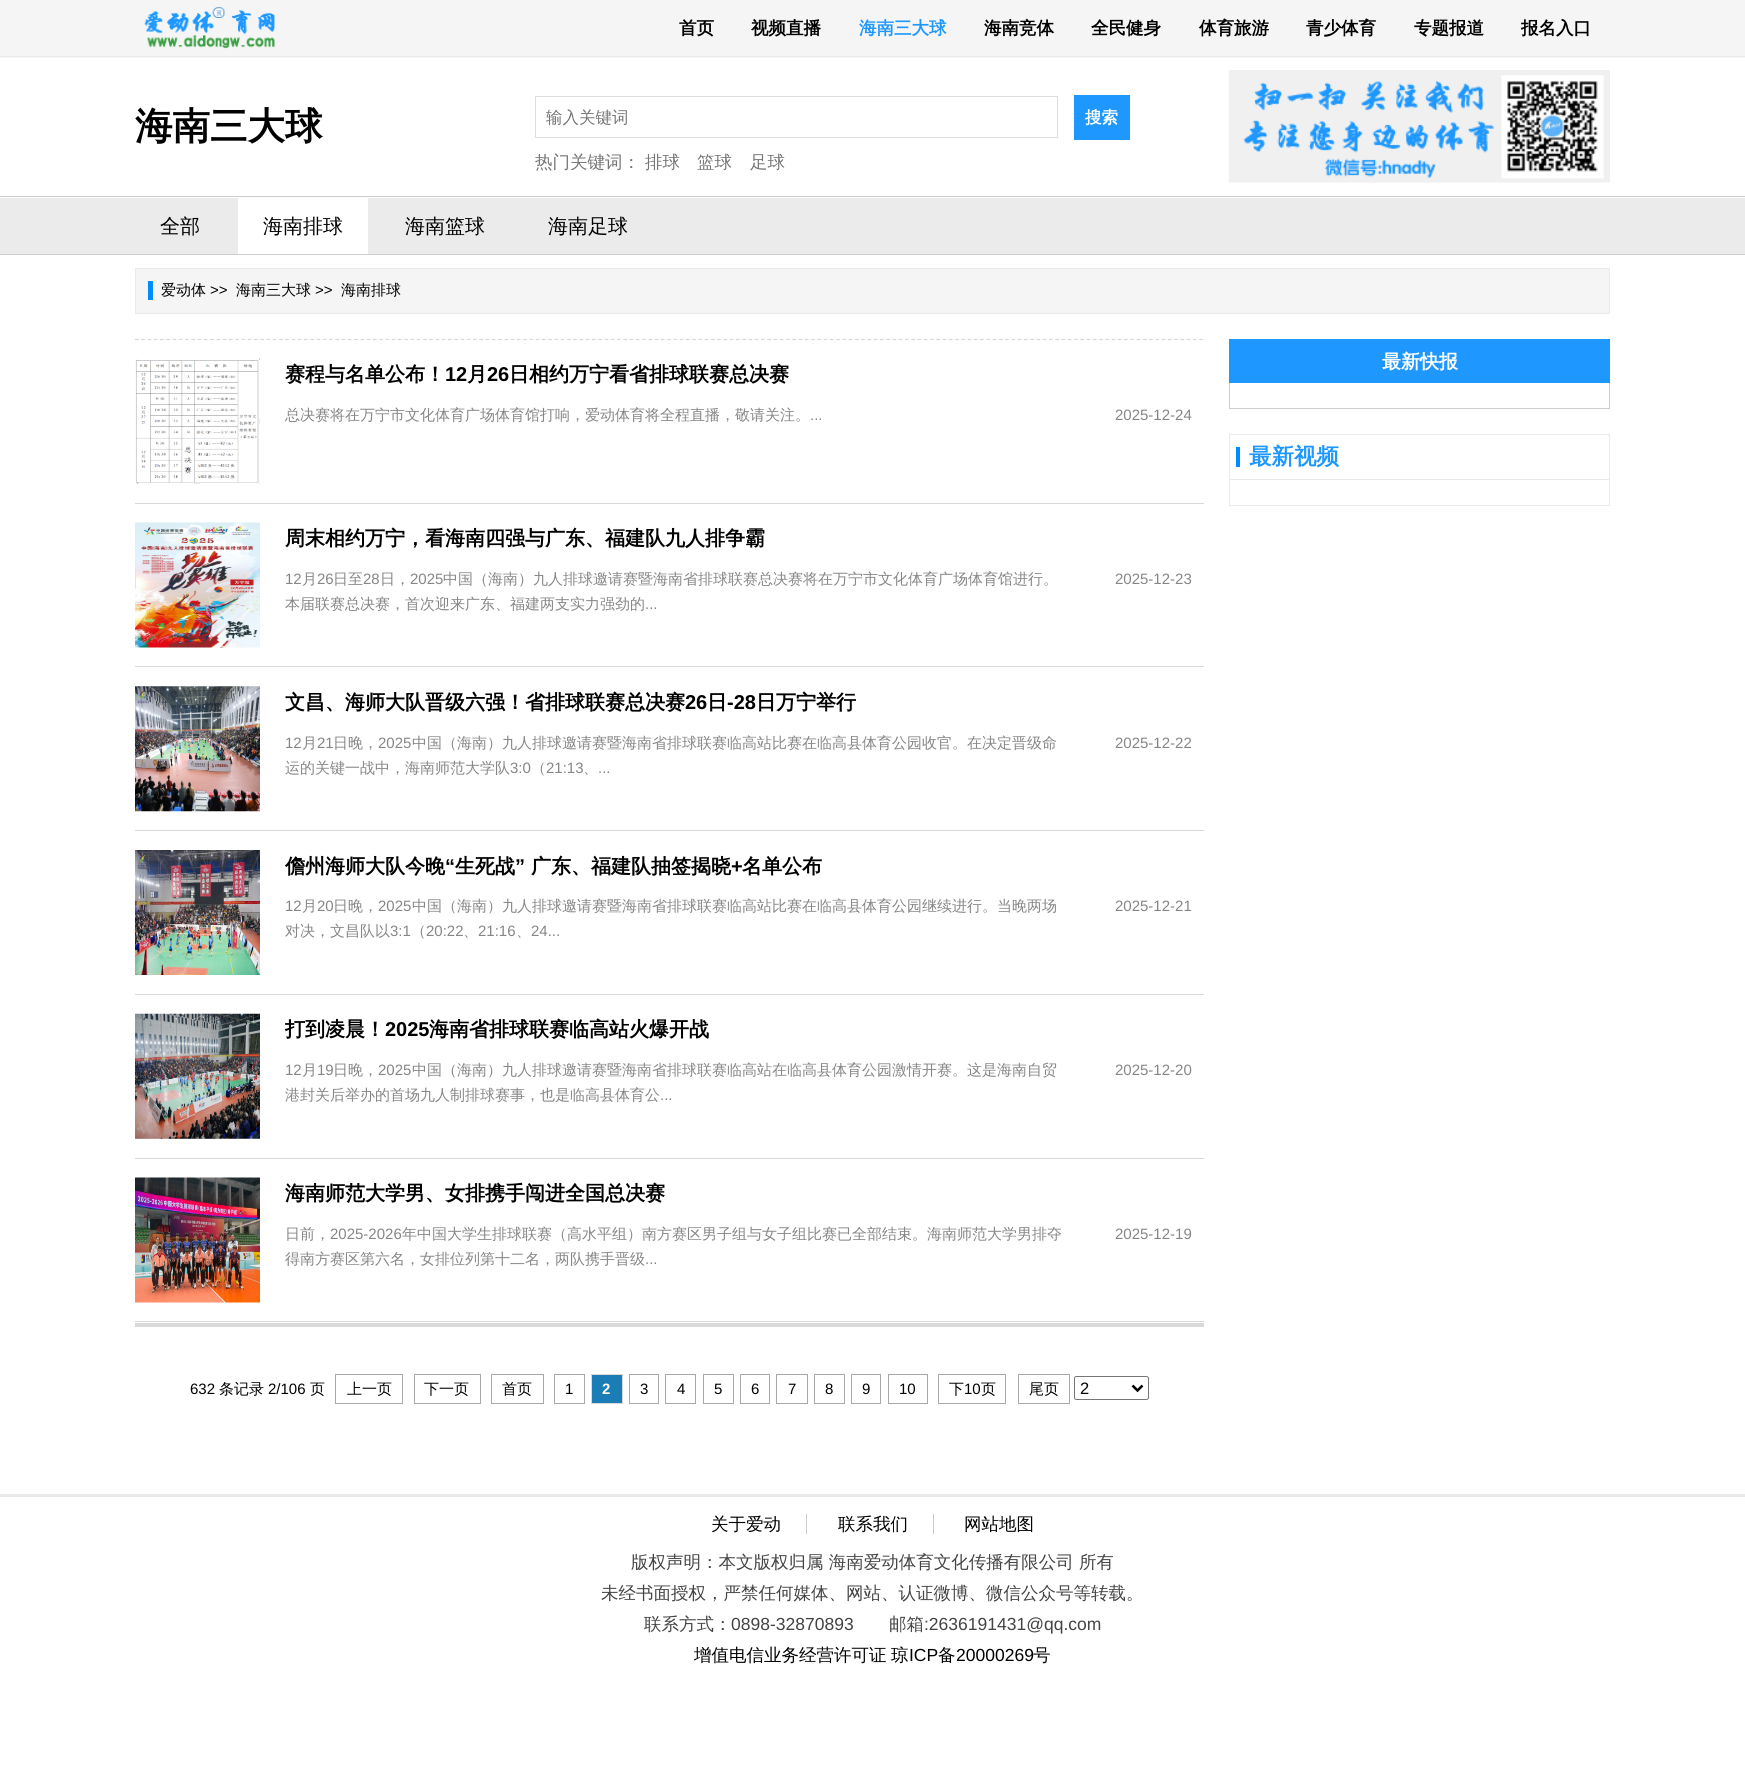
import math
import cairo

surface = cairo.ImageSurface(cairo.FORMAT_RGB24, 1745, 1783)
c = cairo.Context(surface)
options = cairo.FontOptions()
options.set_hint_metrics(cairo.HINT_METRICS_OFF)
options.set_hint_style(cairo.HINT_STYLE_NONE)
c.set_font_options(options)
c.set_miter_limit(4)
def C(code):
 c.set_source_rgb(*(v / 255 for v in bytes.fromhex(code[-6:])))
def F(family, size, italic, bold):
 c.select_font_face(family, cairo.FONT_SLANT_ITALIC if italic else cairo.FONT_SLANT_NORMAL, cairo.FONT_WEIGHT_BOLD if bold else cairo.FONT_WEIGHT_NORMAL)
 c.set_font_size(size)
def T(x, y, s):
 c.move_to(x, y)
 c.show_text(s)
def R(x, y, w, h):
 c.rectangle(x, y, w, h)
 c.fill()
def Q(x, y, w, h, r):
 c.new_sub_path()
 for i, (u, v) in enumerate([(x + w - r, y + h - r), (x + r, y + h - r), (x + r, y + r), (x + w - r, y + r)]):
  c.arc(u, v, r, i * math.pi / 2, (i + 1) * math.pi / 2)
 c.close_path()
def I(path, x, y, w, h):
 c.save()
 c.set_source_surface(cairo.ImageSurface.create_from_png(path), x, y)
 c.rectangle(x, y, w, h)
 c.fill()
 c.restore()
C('ffffff')
c.paint()
C('f5f5f5')
R(0,0,1745,58)
C('eaeaea')
R(0,56,1745,1)
I('1.png',144,7,131,42)
F('WenQuanYi Zen Hei',17.5,0,1)
C('000000')
T(679,34,'首页')
T(751,34,'视频直播')
C('1e98ff')
T(859,34,'海南三大球')
C('000000')
T(984,34,'海南竞体')
T(1091,34,'全民健身')
T(1199,34,'体育旅游')
T(1306,34,'青少体育')
T(1414,34,'专题报道')
T(1521,34,'报名入口')
F('WenQuanYi Zen Hei',37.5,0,1)
T(135,139,'海南三大球')
c.rectangle(535.5,96.5,522,41)
C('dddddd')
c.set_line_width(1)
c.stroke()
F('WenQuanYi Zen Hei Medium',16.5,0,0)
C('757575')
T(546,123,'输入关键词')
C('1e98ff')
R(1074,95,56,45)
F('WenQuanYi Zen Hei',16.5,0,1)
C('ffffff')
T(1085,123,'搜索')
F('WenQuanYi Zen Hei Medium',17.5,0,0)
C('757575')
T(535,168,'热门关键词：')
T(645,168,'排球')
T(697,168,'篮球')
T(750,168,'足球')
I('2.png',1228,70,382,113)
C('ebebeb')
R(0,198,1745,56)
C('cdcdcd')
R(0,196,1745,1)
R(0,254,1745,1)
F('WenQuanYi Zen Hei Medium',20,0,0)
C('000000')
T(160,233,'全部')
C('ffffff')
R(238,198,130,56)
C('000000')
T(263,233,'海南排球')
T(405,233,'海南篮球')
T(548,233,'海南足球')
C('f5f5f5')
R(136,269,1473,44)
C('008bfe')
R(148,281,5,19)
c.rectangle(135.5,268.5,1474,45)
C('eaeaea')
c.stroke()
F('WenQuanYi Zen Hei Medium',15,0,0)
C('000000')
T(161,295,'爱动体')
F('Liberation Sans',15,0,0)
T(210,295,'>>')
F('WenQuanYi Zen Hei Medium',15,0,0)
T(236,295,'海南三大球')
F('Liberation Sans',15,0,0)
T(315,295,'>>')
F('WenQuanYi Zen Hei Medium',15,0,0)
T(341,295,'海南排球')
c.new_path()
c.move_to(135,339.5)
c.line_to(1204,339.5)
C('d9d9d9')
c.set_line_width(1.2)
c.set_dash([3.75,2.51])
c.stroke()
R(135,503,1069,1)
I('3.png',135,358,125,126)
F('WenQuanYi Zen Hei',20,0,1)
C('000000')
T(285,381,'赛程与名单公布！')
F('Liberation Sans',20,0,1)
T(445,381,'12')
F('WenQuanYi Zen Hei',20,0,1)
T(467,381,'月')
F('Liberation Sans',20,0,1)
T(487,381,'26')
F('WenQuanYi Zen Hei',20,0,1)
T(509,381,'日相约万宁看省排球联赛总决赛')
F('WenQuanYi Zen Hei Medium',15,0,0)
C('868686')
T(285,420,'总决赛将在万宁市文化体育广场体育馆打响，爱动体育将全程直播，敬请关注。')
F('Liberation Sans',15,0,0)
T(810,420,'...')
T(1115,420,'2025-12-24')
C('d9d9d9')
R(135,666,1069,1)
I('4.png',135,522,125,126)
F('WenQuanYi Zen Hei',20,0,1)
C('000000')
T(285,545,'周末相约万宁，看海南四强与广东、福建队九人排争霸')
F('Liberation Sans',15,0,0)
C('868686')
T(285,584,'12')
F('WenQuanYi Zen Hei Medium',15,0,0)
T(302,584,'月')
F('Liberation Sans',15,0,0)
T(317,584,'26')
F('WenQuanYi Zen Hei Medium',15,0,0)
T(333,584,'日至')
F('Liberation Sans',15,0,0)
T(363,584,'28')
F('WenQuanYi Zen Hei Medium',15,0,0)
T(380,584,'日，')
F('Liberation Sans',15,0,0)
T(410,584,'2025')
F('WenQuanYi Zen Hei Medium',15,0,0)
T(443,584,'中国（海南）九人排球邀请赛暨海南省排球联赛总决赛将在万宁市文化体育广场体育馆进行。')
F('Liberation Sans',15,0,0)
T(1115,584,'2025-12-23')
F('WenQuanYi Zen Hei Medium',15,0,0)
T(285,609,'本届联赛总决赛，首次迎来广东、福建两支实力强劲的')
F('Liberation Sans',15,0,0)
T(645,609,'...')
C('d9d9d9')
R(135,830,1069,1)
I('5.png',135,686,125,126)
F('WenQuanYi Zen Hei',20,0,1)
C('000000')
T(285,709,'文昌、海师大队晋级六强！省排球联赛总决赛')
F('Liberation Sans',20,0,1)
T(685,709,'26')
F('WenQuanYi Zen Hei',20,0,1)
T(707,709,'日')
F('Liberation Sans',20,0,1)
T(727,709,'-28')
F('WenQuanYi Zen Hei',20,0,1)
T(756,709,'日万宁举行')
F('Liberation Sans',15,0,0)
C('868686')
T(285,748,'12')
F('WenQuanYi Zen Hei Medium',15,0,0)
T(302,748,'月')
F('Liberation Sans',15,0,0)
T(317,748,'21')
F('WenQuanYi Zen Hei Medium',15,0,0)
T(333,748,'日晚，')
F('Liberation Sans',15,0,0)
T(378,748,'2025')
F('WenQuanYi Zen Hei Medium',15,0,0)
T(412,748,'中国（海南）九人排球邀请赛暨海南省排球联赛临高站比赛在临高县体育公园收官。在决定晋级命')
F('Liberation Sans',15,0,0)
T(1115,748,'2025-12-22')
F('WenQuanYi Zen Hei Medium',15,0,0)
T(285,773,'运的关键一战中，海南师范大学队')
F('Liberation Sans',15,0,0)
T(510,773,'3:0')
F('WenQuanYi Zen Hei Medium',15,0,0)
T(531,773,'（')
F('Liberation Sans',15,0,0)
T(546,773,'21:13')
F('WenQuanYi Zen Hei Medium',15,0,0)
T(583,773,'、')
F('Liberation Sans',15,0,0)
T(598,773,'...')
C('d9d9d9')
R(135,994,1069,1)
I('6.png',135,850,125,125)
F('WenQuanYi Zen Hei',20,0,1)
C('000000')
T(285,873,'儋州海师大队今晚')
F('Liberation Sans',20,0,1)
T(445,873,'“')
F('WenQuanYi Zen Hei',20,0,1)
T(455,873,'生死战')
F('Liberation Sans',20,0,1)
T(515,873,'”')
F('WenQuanYi Zen Hei',20,0,1)
T(531,873,'广东、福建队抽签揭晓')
F('Liberation Sans',20,0,1)
T(731,873,'+')
F('WenQuanYi Zen Hei',20,0,1)
T(742,873,'名单公布')
F('Liberation Sans',15,0,0)
C('868686')
T(285,911,'12')
F('WenQuanYi Zen Hei Medium',15,0,0)
T(302,911,'月')
F('Liberation Sans',15,0,0)
T(317,911,'20')
F('WenQuanYi Zen Hei Medium',15,0,0)
T(333,911,'日晚，')
F('Liberation Sans',15,0,0)
T(378,911,'2025')
F('WenQuanYi Zen Hei Medium',15,0,0)
T(412,911,'中国（海南）九人排球邀请赛暨海南省排球联赛临高站比赛在临高县体育公园继续进行。当晚两场')
F('Liberation Sans',15,0,0)
T(1115,911,'2025-12-21')
F('WenQuanYi Zen Hei Medium',15,0,0)
T(285,936,'对决，文昌队以')
F('Liberation Sans',15,0,0)
T(390,936,'3:1')
F('WenQuanYi Zen Hei Medium',15,0,0)
T(411,936,'（')
F('Liberation Sans',15,0,0)
T(426,936,'20:22')
F('WenQuanYi Zen Hei Medium',15,0,0)
T(463,936,'、')
F('Liberation Sans',15,0,0)
T(478,936,'21:16')
F('WenQuanYi Zen Hei Medium',15,0,0)
T(516,936,'、')
F('Liberation Sans',15,0,0)
T(531,936,'24...')
C('d9d9d9')
R(135,1158,1069,1)
I('7.png',135,1013,125,126)
F('WenQuanYi Zen Hei',20,0,1)
C('000000')
T(285,1036,'打到凌晨！')
F('Liberation Sans',20,0,1)
T(385,1036,'2025')
F('WenQuanYi Zen Hei',20,0,1)
T(429,1036,'海南省排球联赛临高站火爆开战')
F('Liberation Sans',15,0,0)
C('868686')
T(285,1075,'12')
F('WenQuanYi Zen Hei Medium',15,0,0)
T(302,1075,'月')
F('Liberation Sans',15,0,0)
T(317,1075,'19')
F('WenQuanYi Zen Hei Medium',15,0,0)
T(333,1075,'日晚，')
F('Liberation Sans',15,0,0)
T(378,1075,'2025')
F('WenQuanYi Zen Hei Medium',15,0,0)
T(412,1075,'中国（海南）九人排球邀请赛暨海南省排球联赛临高站在临高县体育公园激情开赛。这是海南自贸')
F('Liberation Sans',15,0,0)
T(1115,1075,'2025-12-20')
F('WenQuanYi Zen Hei Medium',15,0,0)
T(285,1100,'港封关后举办的首场九人制排球赛事，也是临高县体育公')
F('Liberation Sans',15,0,0)
T(660,1100,'...')
C('d9d9d9')
R(135,1321,1069,1)
I('8.png',135,1177,125,126)
F('WenQuanYi Zen Hei',20,0,1)
C('000000')
T(285,1200,'海南师范大学男、女排携手闯进全国总决赛')
F('WenQuanYi Zen Hei Medium',15,0,0)
C('868686')
T(285,1239,'日前，')
F('Liberation Sans',15,0,0)
T(330,1239,'2025-2026')
F('WenQuanYi Zen Hei Medium',15,0,0)
T(402,1239,'年中国大学生排球联赛（高水平组）南方赛区男子组与女子组比赛已全部结束。海南师范大学男排夺')
F('Liberation Sans',15,0,0)
T(1115,1239,'2025-12-19')
F('WenQuanYi Zen Hei Medium',15,0,0)
T(285,1264,'得南方赛区第六名，女排位列第十二名，两队携手晋级')
F('Liberation Sans',15,0,0)
T(645,1264,'...')
C('d9d9d9')
R(135,1323,1069,4)
C('000000')
T(190,1394,'632')
F('WenQuanYi Zen Hei Medium',15,0,0)
T(219,1394,'条记录')
F('Liberation Sans',15,0,0)
T(268,1394,'2/106')
F('WenQuanYi Zen Hei Medium',15,0,0)
T(310,1394,'页')
c.rectangle(335.5,1374.5,67,29)
C('a9a9a9')
c.set_line_width(1)
c.set_dash([])
c.stroke()
C('000000')
T(347,1394,'上一页')
c.rectangle(414.5,1374.5,66,29)
C('a9a9a9')
c.stroke()
C('000000')
T(424,1394,'下一页')
c.rectangle(491.5,1374.5,52,29)
C('a9a9a9')
c.stroke()
C('000000')
T(502,1394,'首页')
c.rectangle(554.5,1374.5,30,29)
C('a9a9a9')
c.stroke()
F('Liberation Sans',15,0,0)
C('000000')
T(565,1394,'1')
C('1a7db6')
c.rectangle(591.5,1374.5,31,29)
c.fill_preserve()
C('d9d9d9')
c.stroke()
F('Liberation Sans',15,0,1)
C('ffffff')
T(602,1394,'2')
c.rectangle(629.5,1374.5,29,29)
C('a9a9a9')
c.stroke()
F('Liberation Sans',15,0,0)
C('000000')
T(640,1394,'3')
c.rectangle(665.5,1374.5,30,29)
C('a9a9a9')
c.stroke()
C('000000')
T(677,1394,'4')
c.rectangle(703.5,1374.5,30,29)
C('a9a9a9')
c.stroke()
C('000000')
T(714,1394,'5')
c.rectangle(740.5,1374.5,29,29)
C('a9a9a9')
c.stroke()
C('000000')
T(751,1394,'6')
c.rectangle(776.5,1374.5,31,29)
C('a9a9a9')
c.stroke()
C('000000')
T(788,1394,'7')
c.rectangle(814.5,1374.5,30,29)
C('a9a9a9')
c.stroke()
C('000000')
T(825,1394,'8')
c.rectangle(851.5,1374.5,29,29)
C('a9a9a9')
c.stroke()
C('000000')
T(862,1394,'9')
c.rectangle(888.5,1374.5,39,29)
C('a9a9a9')
c.stroke()
C('000000')
T(899,1394,'10')
c.rectangle(938.5,1374.5,67,29)
C('a9a9a9')
c.stroke()
F('WenQuanYi Zen Hei Medium',15,0,0)
C('000000')
T(949,1394,'下')
F('Liberation Sans',15,0,0)
T(964,1394,'10')
F('WenQuanYi Zen Hei Medium',15,0,0)
T(981,1394,'页')
c.rectangle(1018.5,1374.5,51,29)
C('a9a9a9')
c.stroke()
C('000000')
T(1029,1394,'尾页')
Q(1074.5,1376.5,74,23,2)
C('767676')
c.stroke()
c.new_path()
c.move_to(1132.5,1385.5)
c.line_to(1137.5,1390.5)
c.line_to(1142.5,1385.5)
C('000000')
c.set_line_width(2.5)
c.stroke()
F('Liberation Sans',16.5,0,0)
T(1080,1394,'2')
C('1e98ff')
R(1229,339,381,44)
F('WenQuanYi Zen Hei',19,0,1)
C('ffffff')
T(1382,368,'最新快报')
C('cdcdcd')
R(1609,383,1,26)
R(1229,408,381,1)
R(1229,383,1,26)
C('008bfe')
R(1236,447,4,20)
c.rectangle(1229.5,434.5,380,45)
C('eaeaea')
c.set_line_width(1)
c.stroke()
F('WenQuanYi Zen Hei',22.5,0,1)
C('1e98ff')
T(1249,464,'最新视频')
C('eaeaea')
R(1609,480,1,26)
R(1229,505,381,1)
R(1229,480,1,26)
R(0,1494,1745,3)
F('WenQuanYi Zen Hei Medium',17.5,0,0)
C('000000')
T(711,1530,'关于爱动')
C('cccccc')
R(806,1514,1,20)
C('000000')
T(838,1530,'联系我们')
C('cccccc')
R(933,1514,1,20)
C('000000')
T(964,1530,'网站地图')
C('444444')
T(631,1568,'版权声明：本文版权归属 海南爱动体育文化传播有限公司 所有')
T(601,1599,'未经书面授权，严禁任何媒体、网站、认证微博、微信公众号等转载。')
T(644,1630,'联系方式：')
F('Liberation Sans',17.5,0,0)
T(731,1630,'0898-32870893')
F('WenQuanYi Zen Hei Medium',17.5,0,0)
T(889,1630,'邮箱')
F('Liberation Sans',17.5,0,0)
T(924,1630,':2636191431@qq.com')
F('WenQuanYi Zen Hei Medium',17.5,0,0)
C('000000')
T(694,1661,'增值电信业务经营许可证')
T(891,1661,'琼')
F('Liberation Sans',17.5,0,0)
T(909,1661,'ICP')
F('WenQuanYi Zen Hei Medium',17.5,0,0)
T(938,1661,'备')
F('Liberation Sans',17.5,0,0)
T(956,1661,'20000269')
F('WenQuanYi Zen Hei Medium',17.5,0,0)
T(1033,1661,'号')
surface.write_to_png('o.png')
